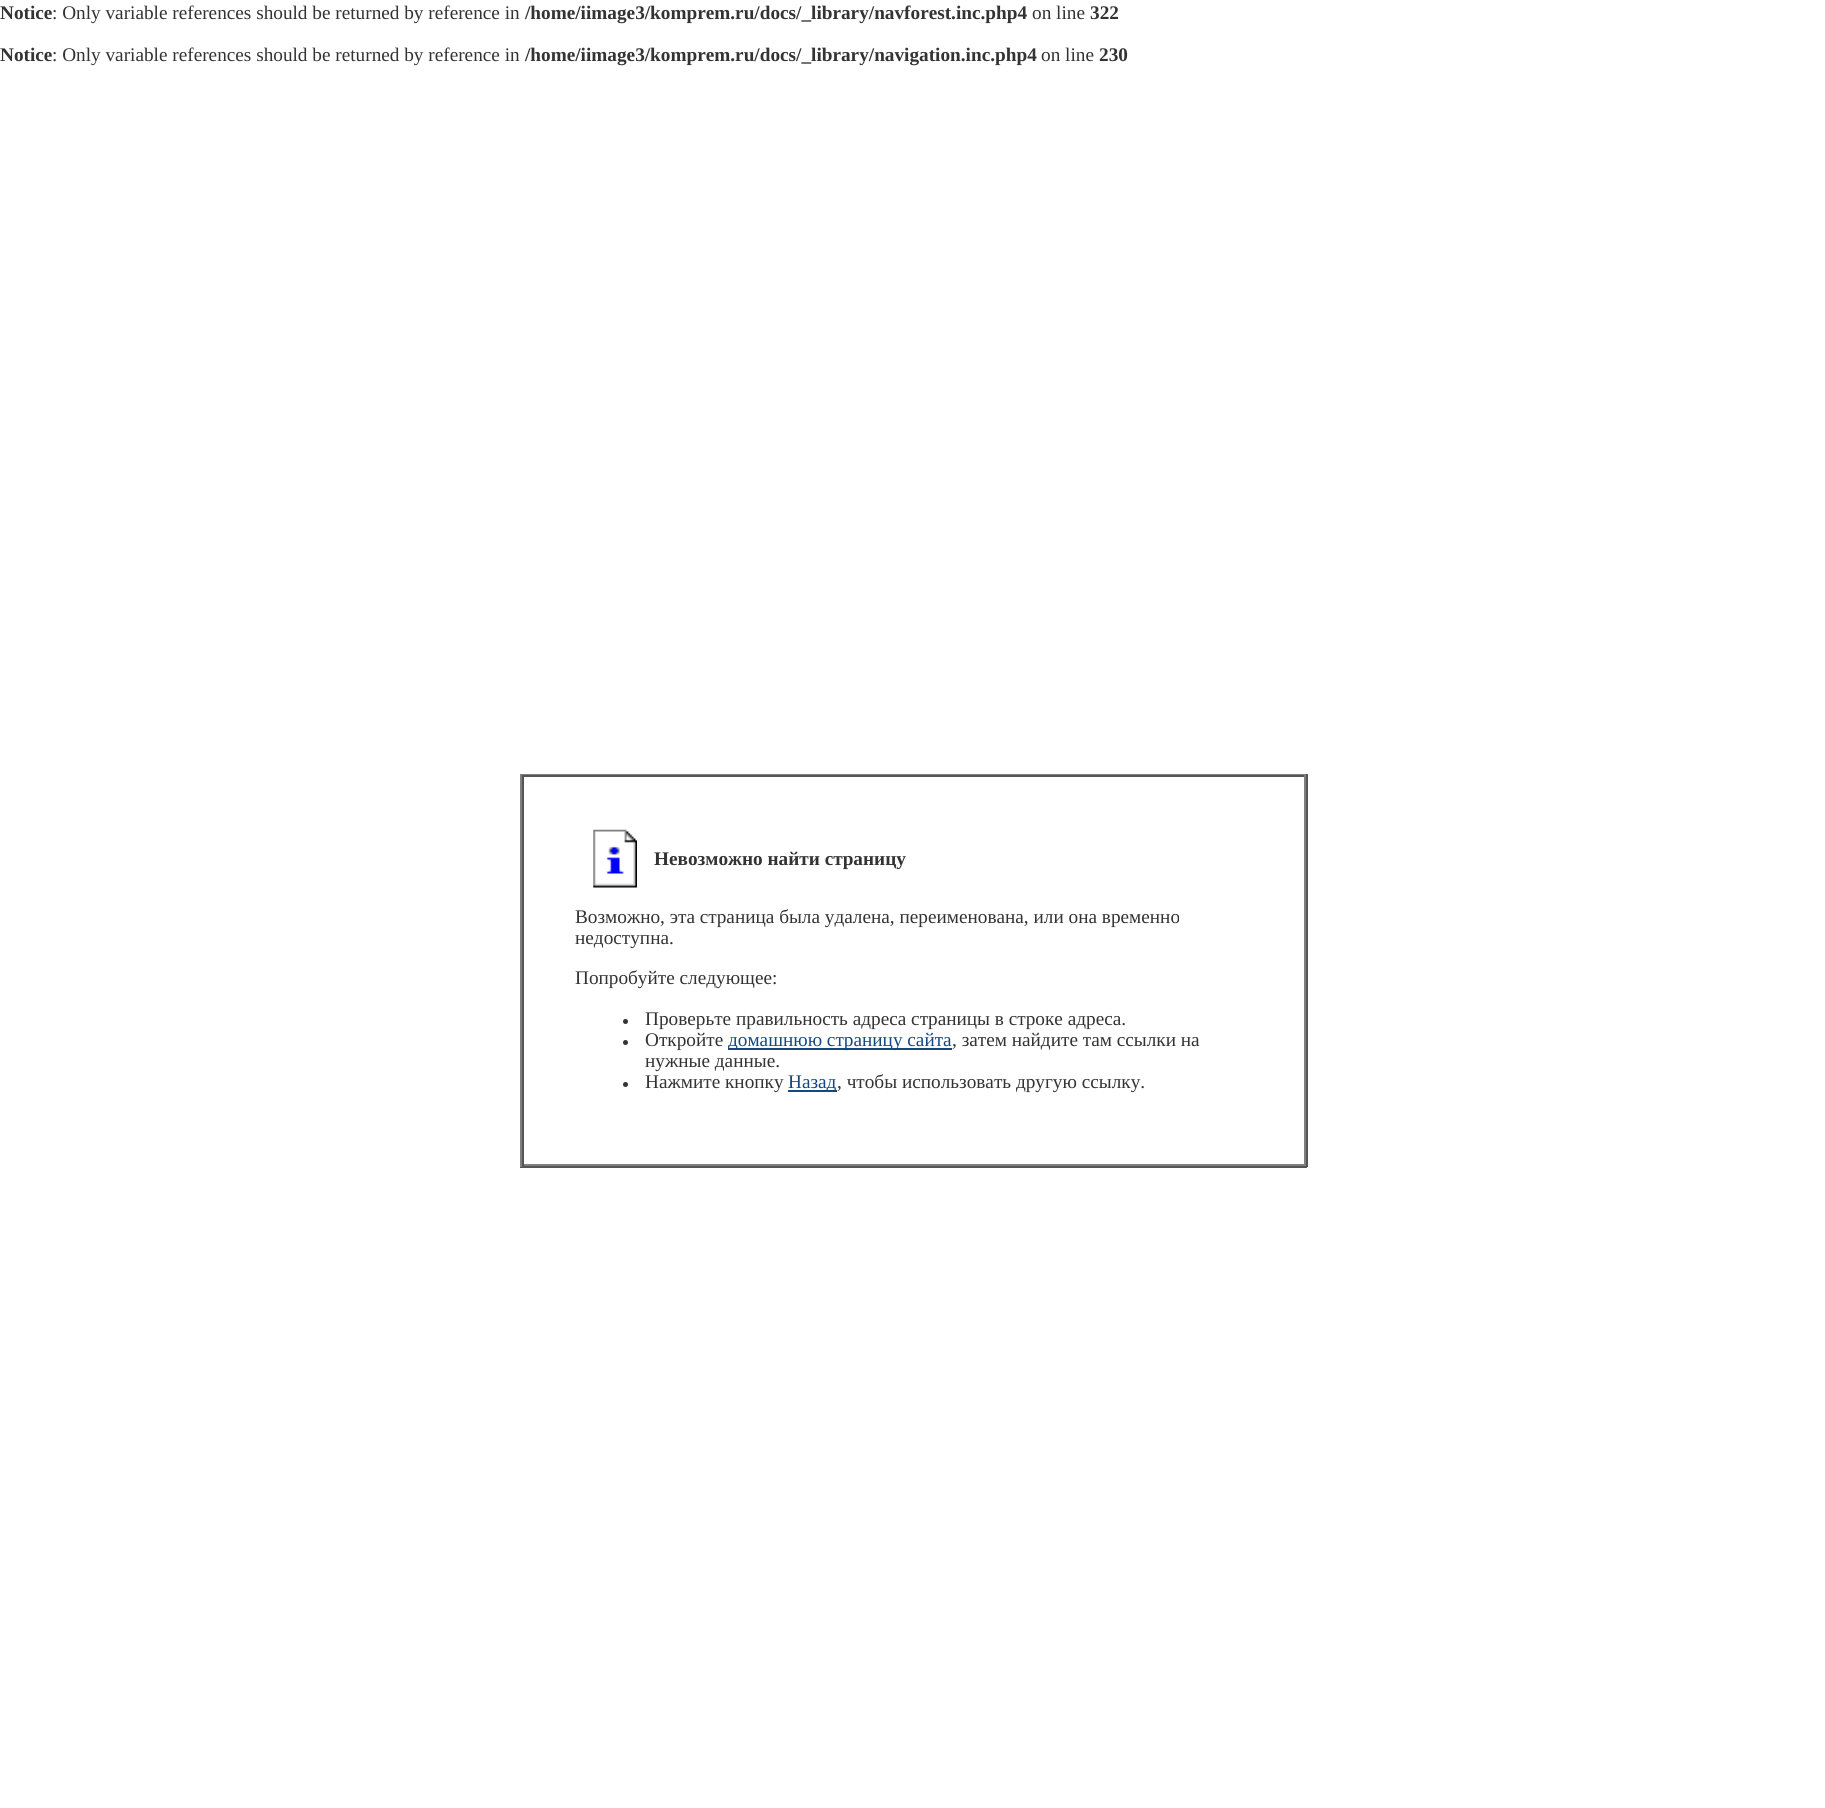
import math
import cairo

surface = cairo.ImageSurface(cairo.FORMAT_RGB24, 1825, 1808)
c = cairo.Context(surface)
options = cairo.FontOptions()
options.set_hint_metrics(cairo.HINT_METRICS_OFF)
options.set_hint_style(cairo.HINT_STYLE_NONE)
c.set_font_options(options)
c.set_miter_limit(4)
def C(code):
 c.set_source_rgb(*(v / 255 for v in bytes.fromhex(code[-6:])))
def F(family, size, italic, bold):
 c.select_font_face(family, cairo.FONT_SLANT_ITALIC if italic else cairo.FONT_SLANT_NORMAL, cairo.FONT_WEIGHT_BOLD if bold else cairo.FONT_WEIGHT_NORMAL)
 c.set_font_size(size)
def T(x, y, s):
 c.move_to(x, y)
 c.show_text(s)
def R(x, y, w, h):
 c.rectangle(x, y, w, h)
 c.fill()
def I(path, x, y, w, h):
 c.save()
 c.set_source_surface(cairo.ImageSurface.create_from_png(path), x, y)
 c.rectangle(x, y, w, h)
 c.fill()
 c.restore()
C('ffffff')
c.paint()
F('Liberation Serif',19.25,0,1)
C('333333')
T(0,19,'Notice')
F('Liberation Serif',19.25,0,0)
T(52,19,': Only variable references should be returned by reference in')
F('Liberation Serif',19.25,0,1)
T(525,19,'/home/iimage3/komprem.ru/docs/_library/navforest.inc.php4')
F('Liberation Serif',19.25,0,0)
T(1032,19,'on line')
F('Liberation Serif',19.25,0,1)
T(1090,19,'322')
T(0,61,'Notice')
F('Liberation Serif',19.25,0,0)
T(52,61,': Only variable references should be returned by reference in')
F('Liberation Serif',19.25,0,1)
T(525,61,'/home/iimage3/komprem.ru/docs/_library/navigation.inc.php4')
F('Liberation Serif',19.25,0,0)
T(1041,61,'on line')
F('Liberation Serif',19.25,0,1)
T(1099,61,'230')
C('808080')
R(520,774,787,1)
C('555555')
R(1306,774,2,393)
R(520,1166,787,2)
C('808080')
R(520,774,2,393)
C('555555')
R(522,775,784,2)
C('808080')
R(1304,775,2,391)
R(522,1164,784,2)
C('555555')
R(522,775,2,391)
I('1.png',593,829,44,59)
C('333333')
T(654,865,'Невозможно найти страницу')
F('Liberation Serif',19.25,0,0)
T(575,923,'Возможно, эта страница была удалена, переименована, или она временно')
T(575,944,'недоступна.')
T(575,984,'Попробуйте следующее:')
c.new_path()
c.arc(625.5,1021.5,2.5,0,2 * math.pi)
c.fill()
T(645,1025,'Проверьте правильность адреса страницы в строке адреса.')
c.new_path()
c.arc(625.5,1042.5,2.5,0,2 * math.pi)
c.fill()
T(645,1046,'Откройте')
C('144883')
R(728,1048,224,2)
T(728,1046,'домашнюю страницу сайта')
C('333333')
T(952,1046,', затем найдите там ссылки на')
T(645,1067,'нужные данные.')
c.new_path()
c.arc(625.5,1084.5,2.5,0,2 * math.pi)
c.fill()
T(645,1088,'Нажмите кнопку')
C('144883')
R(788,1090,49,2)
T(788,1088,'Назад')
C('333333')
T(837,1088,', чтобы использовать другую ссылку.')
surface.write_to_png('o.png')
